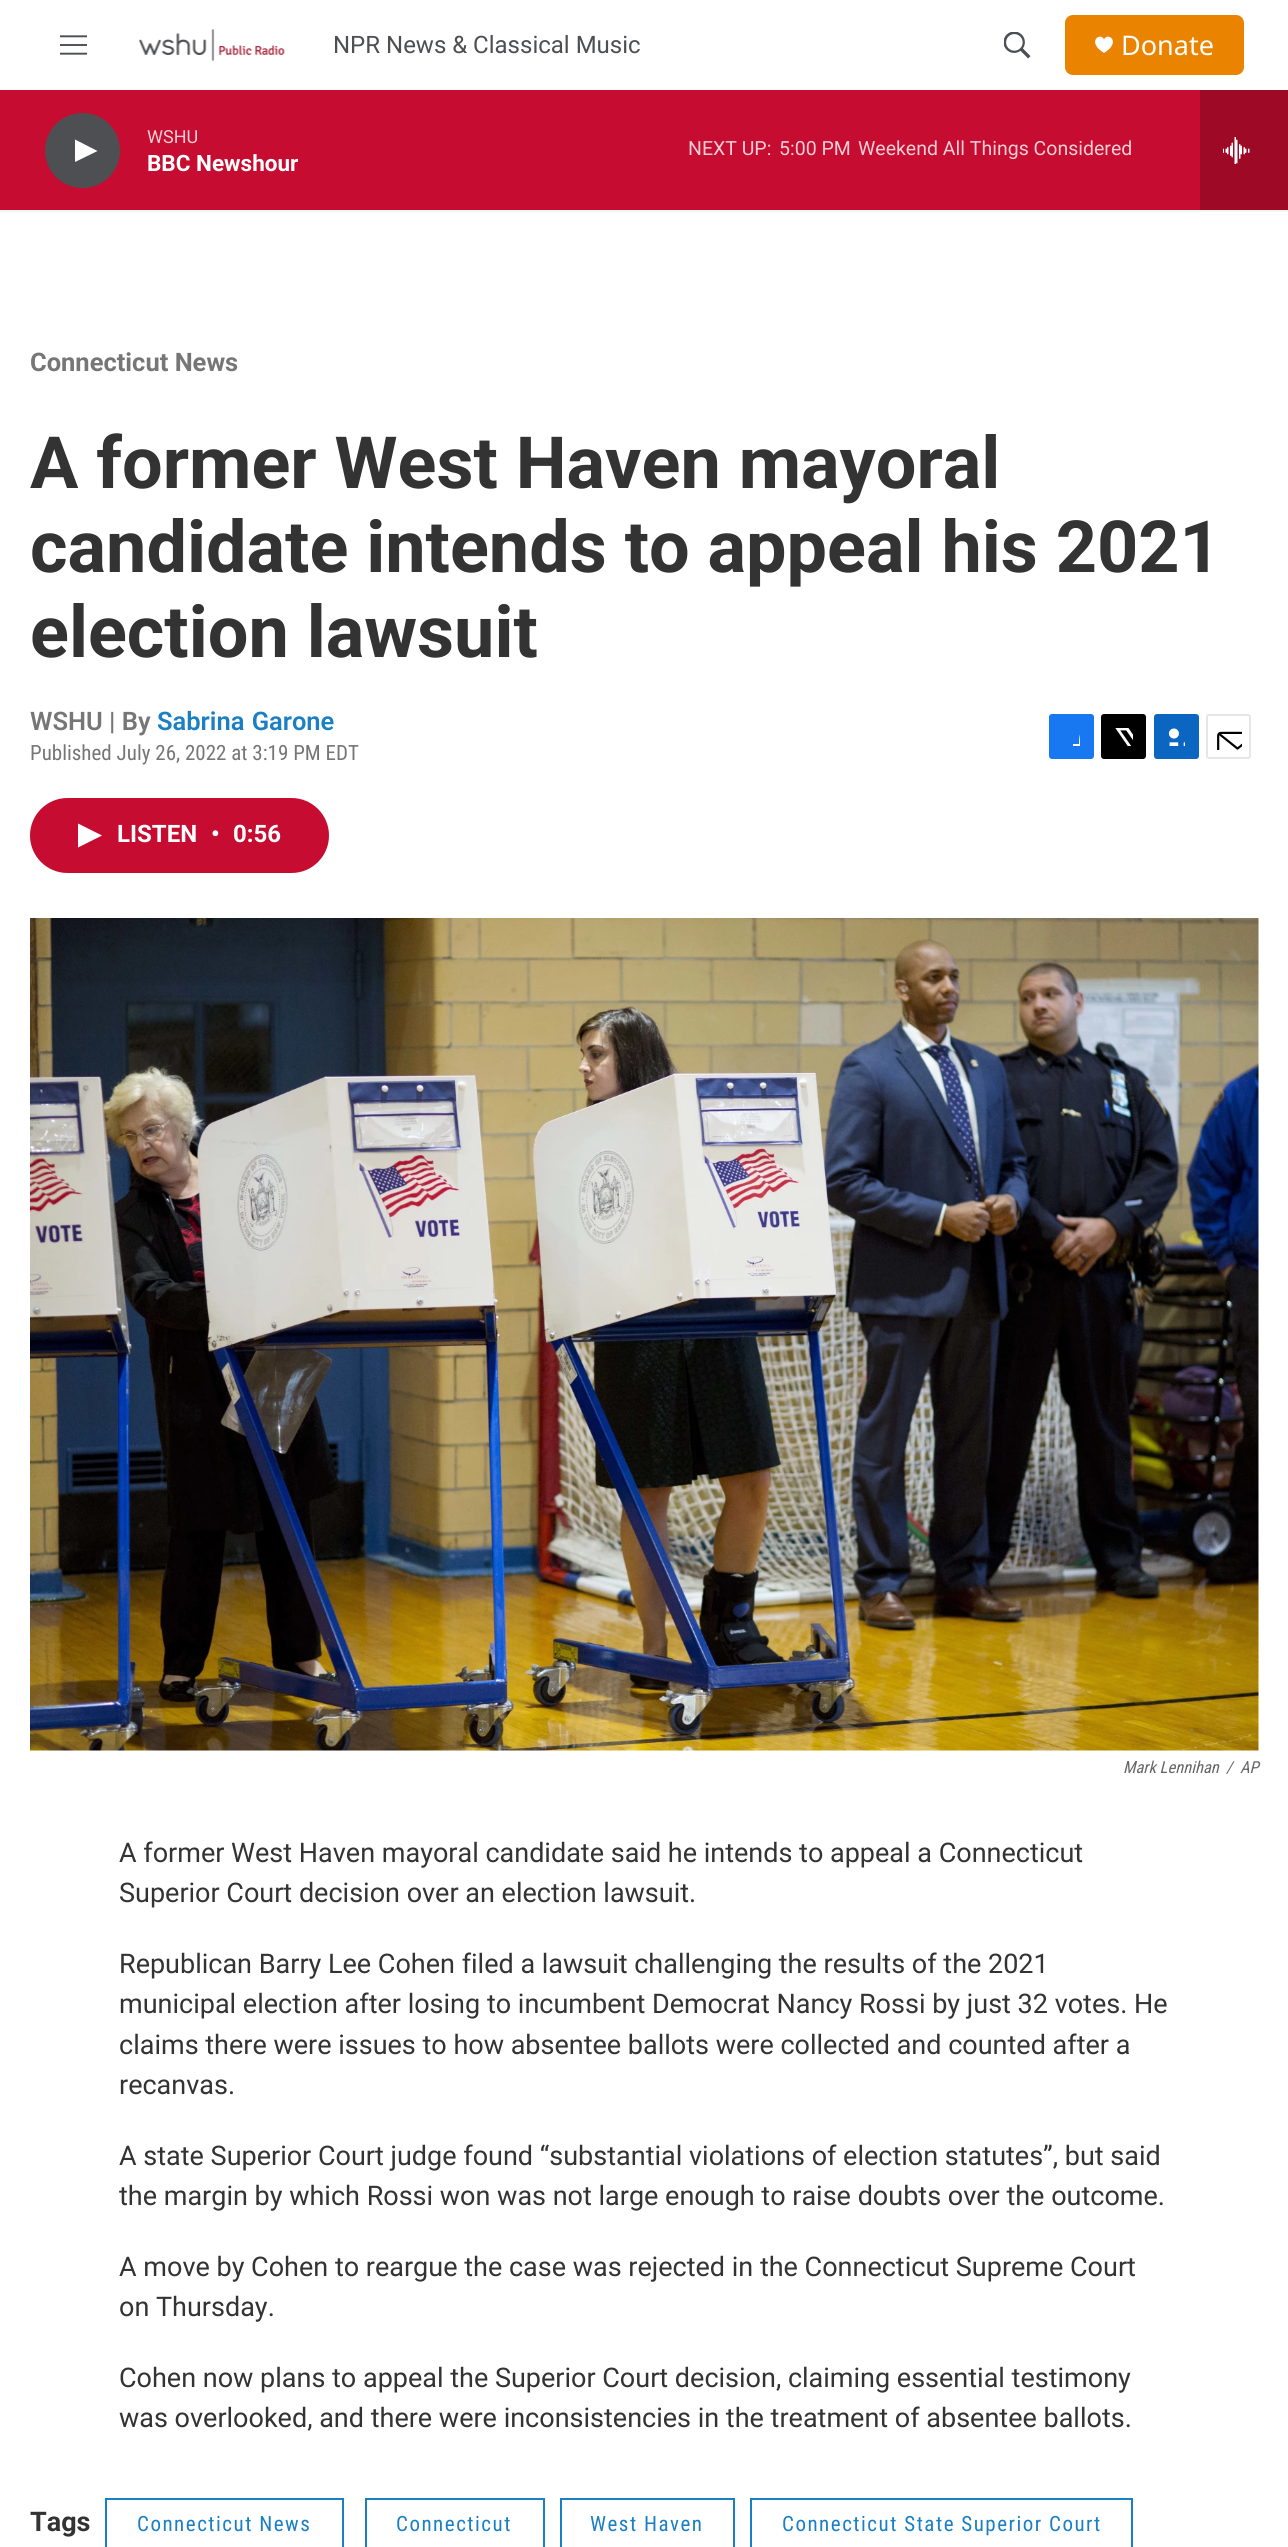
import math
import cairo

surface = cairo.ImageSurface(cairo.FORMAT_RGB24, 1288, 2547)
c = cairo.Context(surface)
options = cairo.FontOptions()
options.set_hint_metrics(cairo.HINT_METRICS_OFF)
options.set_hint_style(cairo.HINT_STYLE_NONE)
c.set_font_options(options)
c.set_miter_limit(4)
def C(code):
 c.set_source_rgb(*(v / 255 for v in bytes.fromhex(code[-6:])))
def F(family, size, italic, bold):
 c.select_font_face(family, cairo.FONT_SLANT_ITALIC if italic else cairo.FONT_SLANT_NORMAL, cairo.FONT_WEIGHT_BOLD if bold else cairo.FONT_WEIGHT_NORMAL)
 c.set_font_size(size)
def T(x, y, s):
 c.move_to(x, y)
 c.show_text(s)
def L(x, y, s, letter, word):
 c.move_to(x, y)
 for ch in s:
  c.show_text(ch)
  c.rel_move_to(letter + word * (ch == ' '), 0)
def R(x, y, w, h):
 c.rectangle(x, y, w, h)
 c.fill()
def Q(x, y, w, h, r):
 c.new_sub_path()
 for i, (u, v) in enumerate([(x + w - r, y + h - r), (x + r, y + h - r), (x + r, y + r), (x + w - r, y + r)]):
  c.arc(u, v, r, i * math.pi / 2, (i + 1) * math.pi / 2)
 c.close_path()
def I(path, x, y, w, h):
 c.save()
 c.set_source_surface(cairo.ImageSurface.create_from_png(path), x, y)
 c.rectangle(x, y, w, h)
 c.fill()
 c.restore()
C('ffffff')
c.paint()
C('f5f5f5')
R(0,210,1288,2)
I('1.png',60,35,27,20)
I('2.png',139,29,146,32)
F('Roboto',24,0,0)
C('4d4f53')
T(333,53,'NPR News & Classical Music')
I('3.png',1004,32,27,27)
C('e98300')
Q(1065,15,179,60,8)
c.fill()
C('ffffff')
c.new_path()
c.move_to(1104,39.5)
c.curve_to(1101,31.5,1085.5,41.5,1104,53)
c.curve_to(1122.5,41.5,1107,31.5,1104,39.5)
c.close_path()
c.fill()
F('Noto Sans',27,0,0)
T(1121,55,'Donate')
C('c60c30')
R(0,90,1200,120)
C('4d4f53')
c.new_path()
c.arc(82.5,150.5,37.5,0,2 * math.pi)
c.fill()
C('ffffff')
c.new_path()
c.move_to(75,139.5)
c.line_to(97.5,151)
c.line_to(75,162)
c.close_path()
c.fill()
F('Roboto',18,0,0)
C('f4ced6')
T(147,143,'WSHU')
F('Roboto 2',22.5,0,1)
C('ffffff')
T(147,171,'BBC Newshour')
F('Roboto',19.5,0,0)
C('f4ced6')
T(688,155,'NEXT UP:')
T(779,155,'5:00 PM')
T(858,155,'Weekend All Things Considered')
C('9e0a26')
R(1200,90,88,120)
I('4.png',1223,137,27,27)
F('Roboto',25.5,0,1)
C('767676')
T(30,371,'Connecticut News')
F('Roboto',72,0,1)
C('333333')
T(30,488,'A former West Haven mayoral')
T(30,572,'candidate intends to appeal his 2021')
T(30,657,'election lawsuit')
F('Roboto SemiBold',25.5,0,0)
C('767676')
T(30,730,'WSHU | By')
C('1a7fc3')
L(157,730,'Sabrina Garone',0,1)
F('Roboto Condensed',21,0,0)
C('767676')
T(30,760,'Published July 26, 2022 at 3:19 PM EDT')
C('1778f2')
Q(1049,714,45,45,3)
c.fill()
c.save()
c.rectangle(1062,728,18,18)
c.clip()
C('ffffff')
c.new_path()
c.move_to(1087,759)
c.line_to(1079,759)
c.line_to(1079,752)
c.line_to(1073,752)
c.line_to(1073,744)
c.line_to(1079,744)
c.curve_to(1079,732.5,1081,726.5,1094,728)
c.line_to(1094,735)
c.curve_to(1086,735,1087,737.5,1087,744)
c.line_to(1094,744)
c.line_to(1093,752)
c.line_to(1087,752)
c.close_path()
c.fill()
c.restore()
C('000000')
Q(1101,714,45,45,3)
c.fill()
I('5.png',1115,728,18,18)
C('0a66c1')
Q(1154,714,45,45,3)
c.fill()
I('6.png',1168,728,17,18)
Q(1207,715,43,43,2)
C('e6e6e6')
c.stroke()
I('7.png',1217,731,25,19)
C('c60c30')
Q(30,798,299,75,37.5)
c.fill()
C('ffffff')
c.new_path()
c.move_to(78,823.5)
c.line_to(102,835.5)
c.line_to(78,847.5)
c.close_path()
c.fill()
F('Roboto 2',24,0,1)
T(117,842,'LISTEN')
T(211,842,'•')
T(233,842,'0:56')
I('8.png',30,918,1229,833)
F('Roboto Condensed',16.5,1,0)
C('666666')
T(1123,1773,'Mark Lennihan')
T(1226,1773,'/')
T(1240,1773,'AP')
F('Roboto',27,0,0)
C('333333')
T(119,1862,'A former West Haven mayoral candidate said he intends to appeal a Connecticut')
T(119,1902,'Superior Court decision over an election lawsuit.')
T(119,1973,'Republican Barry Lee Cohen filed a lawsuit challenging the results of the 2021')
T(119,2013,'municipal election after losing to incumbent Democrat Nancy Rossi by just 32 votes. He')
T(119,2054,'claims there were issues to how absentee ballots were collected and counted after a')
T(119,2094,'recanvas.')
T(119,2165,'A state Superior Court judge found “substantial violations of election statutes”, but said')
T(119,2205,'the margin by which Rossi won was not large enough to raise doubts over the outcome.')
T(119,2276,'A move by Cohen to reargue the case was rejected in the Connecticut Supreme Court')
T(119,2316,'on Thursday.')
T(119,2387,'Cohen now plans to appeal the Superior Court decision, claiming essential testimony')
T(119,2427,'was overlooked, and there were inconsistencies in the treatment of absentee ballots.')
F('Roboto',27,0,1)
T(30,2531,'Tags')
c.rectangle(106,2499,237,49)
C('1a7fc3')
c.stroke()
F('Roboto Condensed',21,0,0)
L(137,2531,'Connecticut News',1.5,0)
c.rectangle(366,2499,178,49)
c.stroke()
L(396,2531,'Connecticut',1.5,0)
c.rectangle(561,2499,173,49)
c.stroke()
L(590,2531,'West Haven',1.5,0)
c.rectangle(751,2499,381,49)
c.stroke()
L(782,2531,'Connecticut State Superior Court',1.5,0)
surface.write_to_png('o.png')
